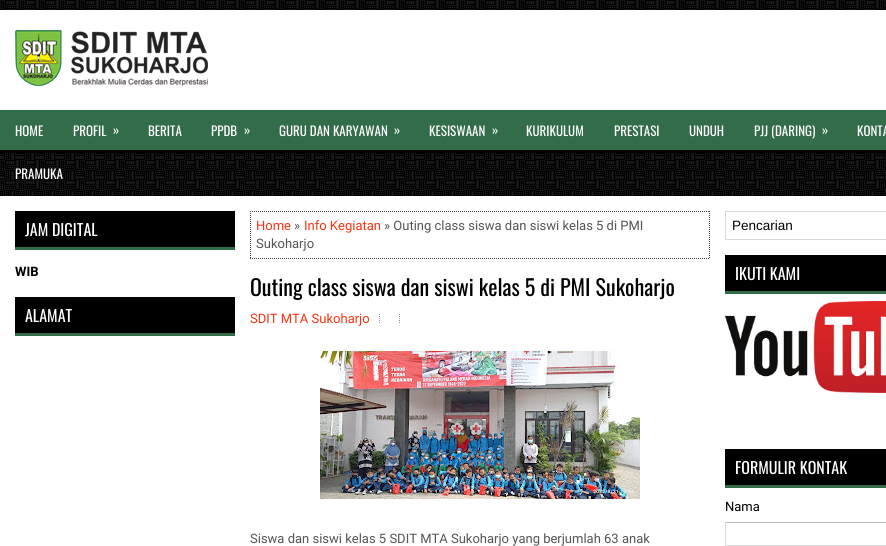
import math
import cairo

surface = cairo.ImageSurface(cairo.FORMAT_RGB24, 886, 546)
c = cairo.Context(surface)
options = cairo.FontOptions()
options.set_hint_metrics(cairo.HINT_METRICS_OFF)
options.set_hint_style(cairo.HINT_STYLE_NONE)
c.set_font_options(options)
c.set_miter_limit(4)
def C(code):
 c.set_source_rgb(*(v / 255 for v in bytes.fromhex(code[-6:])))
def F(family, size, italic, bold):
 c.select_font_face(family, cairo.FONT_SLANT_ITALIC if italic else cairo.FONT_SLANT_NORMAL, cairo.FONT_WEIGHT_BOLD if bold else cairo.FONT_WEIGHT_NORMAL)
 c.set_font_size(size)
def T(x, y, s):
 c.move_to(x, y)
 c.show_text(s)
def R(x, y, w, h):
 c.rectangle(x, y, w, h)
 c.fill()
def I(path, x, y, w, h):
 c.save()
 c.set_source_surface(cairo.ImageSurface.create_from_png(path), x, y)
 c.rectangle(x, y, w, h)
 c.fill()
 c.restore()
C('ffffff')
c.paint()
I('1.png',0,0,886,196)
C('ffffff')
R(0,10,886,100)
I('2.png',15,30,193,56)
C('326c49')
R(0,110,886,40)
C('000000')
R(0,150,886,3)
F('Oswald',13,0,0)
C('ffffff')
T(15,136,'HOME')
T(73,136,'PROFIL')
T(113,135,'»')
T(148,136,'BERITA')
T(211,136,'PPDB')
T(244,135,'»')
T(279,136,'GURU DAN KARYAWAN')
T(394,135,'»')
T(429,136,'KESISWAAN')
T(492,135,'»')
T(526,136,'KURIKULUM')
T(614,136,'PRESTASI')
T(689,136,'UNDUH')
T(754,136,'PJJ (DARING)')
T(822,135,'»')
T(857,136,'KONTA')
T(15,179,'PRAMUKA')
C('326c49')
R(15,247,220,3)
C('000000')
R(15,211,220,36)
F('Oswald',16,0,0)
C('ffffff')
T(25,236,'JAM DIGITAL')
F('Roboto',13,0,1)
C('000000')
T(15,276,'WIB')
C('326c49')
R(15,333,220,3)
C('000000')
R(15,297,220,36)
F('Oswald',16,0,0)
C('ffffff')
T(25,322,'ALAMAT')
c.new_path()
c.move_to(250,211.5)
c.line_to(710,211.5)
C('444444')
c.set_line_width(1)
c.set_dash([1,1])
c.stroke()
c.new_path()
c.move_to(709.5,211)
c.line_to(709.5,259)
c.stroke()
c.new_path()
c.move_to(250,258.5)
c.line_to(710,258.5)
c.stroke()
c.new_path()
c.move_to(250.5,211)
c.line_to(250.5,259)
c.stroke()
F('Roboto',13,0,0)
C('fa320f')
T(256,230,'Home')
C('555555')
T(294,230,'»')
C('fa320f')
T(304,230,'Info Kegiatan')
C('555555')
T(384,230,'» Outing class siswa dan siswi kelas 5 di PMI')
T(256,248,'Sukoharjo')
F('Oswald',22,0,0)
C('000000')
T(250,296,'Outing class siswa dan siswi kelas 5 di PMI Sukoharjo')
F('Roboto',13,0,0)
C('fa320f')
T(250,323,'SDIT MTA Sukoharjo')
I('3.png',379,314,1,9)
I('3.png',399,314,1,9)
I('4.png',320,351,320,148)
C('555555')
T(250,543,'Siswa dan siswi kelas 5 SDIT MTA Sukoharjo yang berjumlah 63 anak')
c.rectangle(725.5,211.5,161,28)
C('d8d8d8')
c.set_dash([])
c.stroke()
F('Liberation Sans',13.5,0,0)
C('000000')
T(732,230,'Pencarian')
C('326c49')
R(725,291,161,3)
C('000000')
R(725,255,161,36)
F('Oswald',16,0,0)
C('ffffff')
T(735,280,'IKUTI KAMI')
I('5.png',725,301,161,92)
C('326c49')
R(725,485,161,3)
C('000000')
R(725,449,161,36)
C('ffffff')
T(735,474,'FORMULIR KONTAK')
F('Roboto',13,0,0)
C('000000')
T(725,511,'Nama')
C('c0c0c0')
R(725,522,161,1)
C('d9d9d9')
R(725,545,161,1)
R(725,522,1,24)
surface.write_to_png('o.png')
